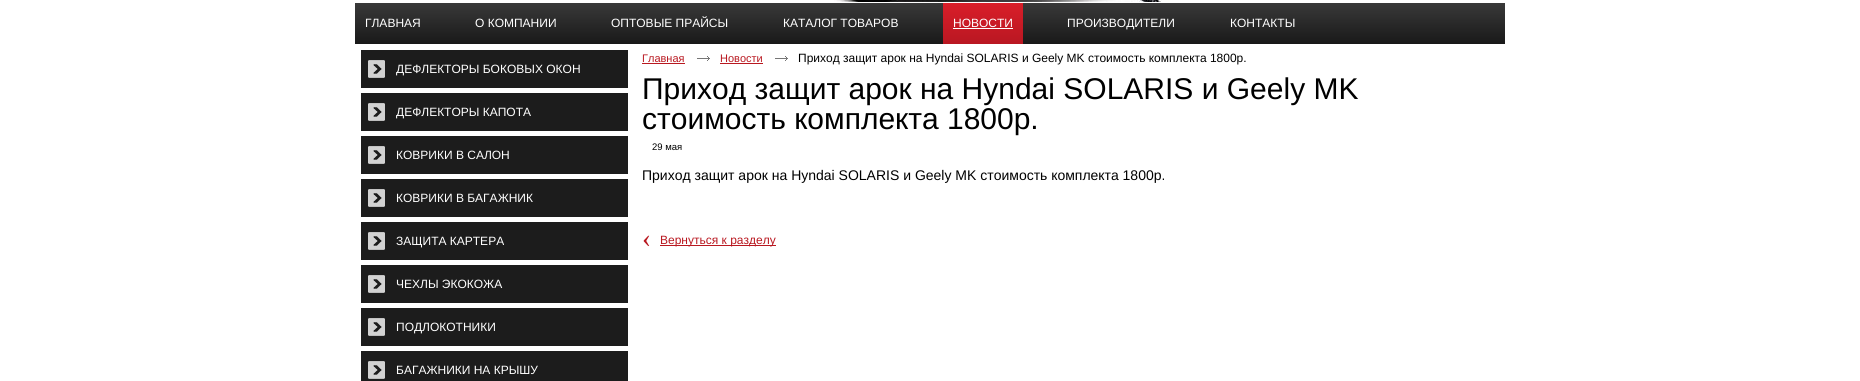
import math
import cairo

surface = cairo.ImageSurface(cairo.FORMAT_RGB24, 1860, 381)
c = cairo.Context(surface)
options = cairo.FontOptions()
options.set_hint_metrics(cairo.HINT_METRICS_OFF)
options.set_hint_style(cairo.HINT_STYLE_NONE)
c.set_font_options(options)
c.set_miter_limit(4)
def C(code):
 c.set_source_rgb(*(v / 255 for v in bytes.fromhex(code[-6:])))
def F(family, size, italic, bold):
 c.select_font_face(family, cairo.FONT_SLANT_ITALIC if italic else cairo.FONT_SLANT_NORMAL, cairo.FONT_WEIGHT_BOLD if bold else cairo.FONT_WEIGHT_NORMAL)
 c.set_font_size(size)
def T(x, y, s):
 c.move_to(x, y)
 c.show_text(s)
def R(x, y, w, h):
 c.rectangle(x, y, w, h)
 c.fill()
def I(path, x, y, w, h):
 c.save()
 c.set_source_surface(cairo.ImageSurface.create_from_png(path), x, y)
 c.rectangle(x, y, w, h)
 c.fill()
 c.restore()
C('ffffff')
c.paint()
I('1.png',834,0,336,2)
gradient = cairo.LinearGradient(930,3,930,44)
gradient.add_color_stop_rgba(0,0.224,0.224,0.224,1)
gradient.add_color_stop_rgba(1,0.098,0.098,0.098,1)
c.set_source(gradient)
R(355,3,1150,41)
F('Liberation Sans',12,0,0)
C('ffffff')
T(365,27,'ГЛАВНАЯ')
T(475,27,'О КОМПАНИИ')
T(611,27,'ОПТОВЫЕ ПРАЙСЫ')
T(783,27,'КАТАЛОГ ТОВАРОВ')
gradient = cairo.LinearGradient(983,3,983,44)
gradient.add_color_stop_rgba(0,0.851,0.118,0.161,1)
gradient.add_color_stop_rgba(1,0.725,0.09,0.133,1)
c.set_source(gradient)
R(943,3,80,41)
C('ffffff')
T(953,27,'НОВОСТИ')
R(953,28,60,1)
T(1067,27,'ПРОИЗВОДИТЕЛИ')
T(1230,27,'КОНТАКТЫ')
C('1c1c1c')
R(361,50,267,38)
I('2.png',368,60,17,18)
C('ffffff')
T(396,73,'ДЕФЛЕКТОРЫ БОКОВЫХ ОКОН')
C('1c1c1c')
R(361,93,267,38)
I('2.png',368,103,17,18)
C('ffffff')
T(396,116,'ДЕФЛЕКТОРЫ КАПОТА')
C('1c1c1c')
R(361,136,267,38)
I('2.png',368,146,17,18)
C('ffffff')
T(396,159,'КОВРИКИ В САЛОН')
C('1c1c1c')
R(361,179,267,38)
I('2.png',368,189,17,18)
C('ffffff')
T(396,202,'КОВРИКИ В БАГАЖНИК')
C('1c1c1c')
R(361,222,267,38)
I('2.png',368,232,17,18)
C('ffffff')
T(396,245,'ЗАЩИТА КАРТЕРА')
C('1c1c1c')
R(361,265,267,38)
I('2.png',368,275,17,18)
C('ffffff')
T(396,288,'ЧЕХЛЫ ЭКОКОЖА')
C('1c1c1c')
R(361,308,267,38)
I('2.png',368,318,17,18)
C('ffffff')
T(396,331,'ПОДЛОКОТНИКИ')
C('1c1c1c')
R(361,351,267,30)
I('2.png',368,361,17,18)
C('ffffff')
T(396,374,'БАГАЖНИКИ НА КРЫШУ')
F('Liberation Sans',11,0,0)
C('b91820')
T(642,62,'Главная')
R(642,63,43,1)
I('3.png',697,56,13,5)
T(720,62,'Новости')
R(720,63,43,1)
I('3.png',775,56,13,5)
F('Liberation Sans',12,0,0)
C('000000')
T(798,62,'Приход защит арок на Hyndai SOLARIS и Geely MK стоимость комплекта 1800р.')
F('Liberation Sans',30,0,0)
T(642,99,'Приход защит арок на Hyndai SOLARIS и Geely MK')
T(642,129,'стоимость комплекта 1800р.')
F('Liberation Sans',9.5,0,0)
T(652,150,'29 мая')
F('Liberation Sans',14,0,0)
T(642,180,'Приход защит арок на Hyndai SOLARIS и Geely MK стоимость комплекта 1800р.')
F('Liberation Serif',27,0,0)
C('b91820')
T(642,247,'‹')
R(660,245,116,1)
F('Liberation Sans',12,0,0)
T(660,244,'Вернуться к разделу')
surface.write_to_png('o.png')
